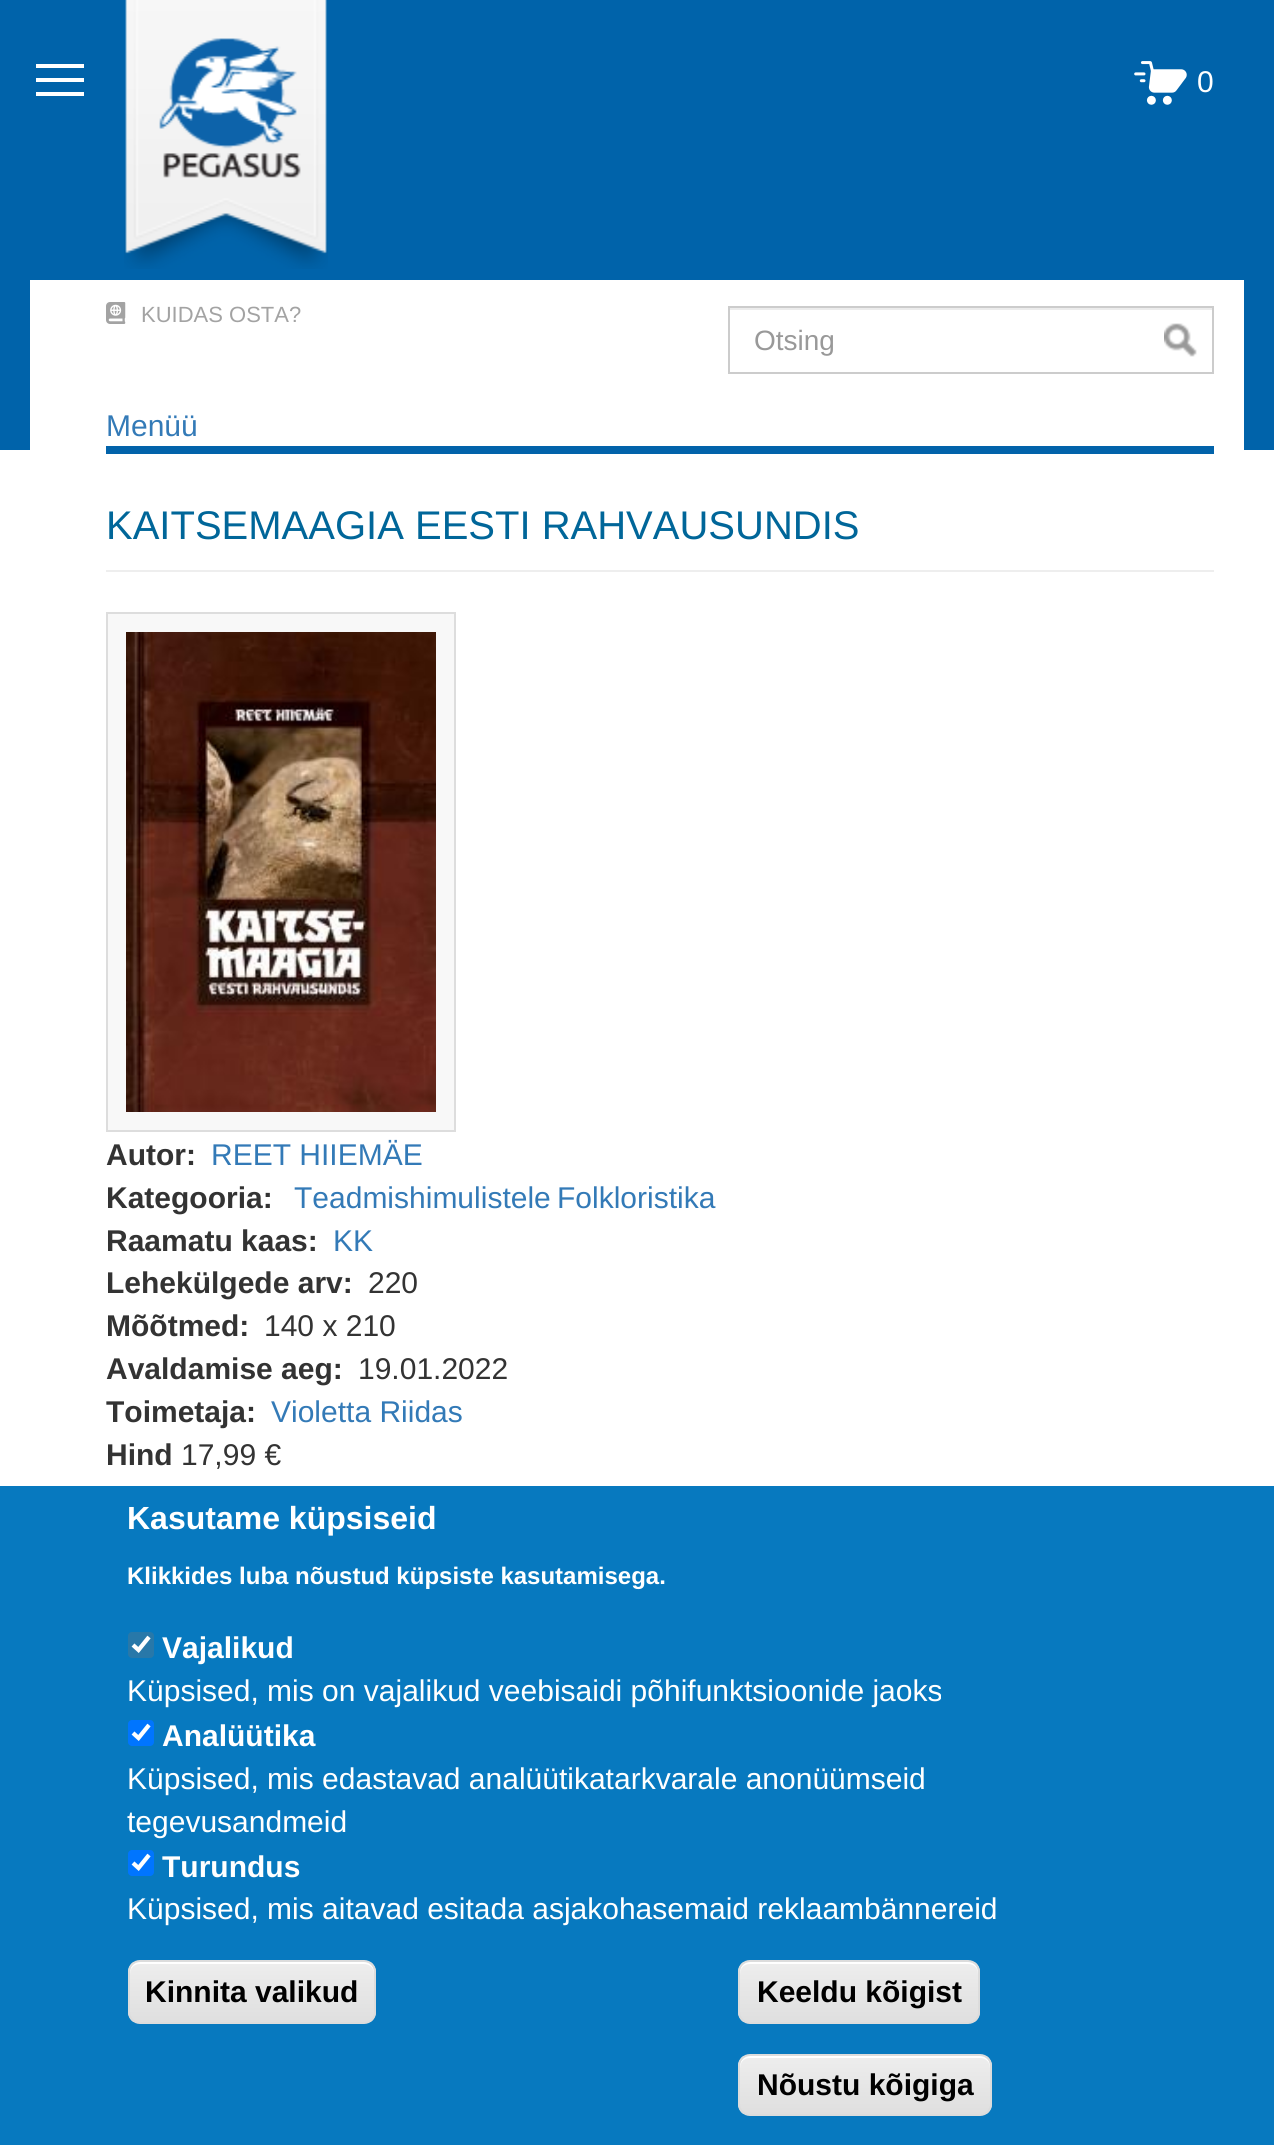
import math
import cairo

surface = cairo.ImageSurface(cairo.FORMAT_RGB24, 1274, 2145)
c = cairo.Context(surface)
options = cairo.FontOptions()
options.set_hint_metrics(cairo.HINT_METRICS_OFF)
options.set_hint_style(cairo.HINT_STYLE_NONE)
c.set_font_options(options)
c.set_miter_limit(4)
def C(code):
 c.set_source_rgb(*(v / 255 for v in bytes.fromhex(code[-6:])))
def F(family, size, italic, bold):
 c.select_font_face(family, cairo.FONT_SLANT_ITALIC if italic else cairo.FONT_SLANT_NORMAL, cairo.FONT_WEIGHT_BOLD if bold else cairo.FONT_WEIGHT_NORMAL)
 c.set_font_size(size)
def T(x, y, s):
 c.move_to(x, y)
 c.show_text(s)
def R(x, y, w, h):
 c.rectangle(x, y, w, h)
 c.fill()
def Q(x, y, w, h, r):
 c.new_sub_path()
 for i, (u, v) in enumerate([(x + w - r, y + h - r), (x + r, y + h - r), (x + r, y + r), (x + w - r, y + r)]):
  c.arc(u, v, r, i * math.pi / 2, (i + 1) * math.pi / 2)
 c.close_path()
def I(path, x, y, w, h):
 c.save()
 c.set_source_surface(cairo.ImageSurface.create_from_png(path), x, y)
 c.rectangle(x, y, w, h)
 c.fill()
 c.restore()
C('ffffff')
c.paint()
C('0063aa')
R(0,0,1274,450)
C('ffffff')
R(36,64,48,4)
R(36,78,48,4)
R(36,92,48,4)
I('1.png',124,0,204,269)
I('2.png',1134,61,53,44)
F('Liberation Sans',30,0,0)
T(1197,92,'0')
R(30,280,1214,170)
I('3.png',106,302,20,22)
F('Liberation Sans',22,0,0)
C('a3a3a3')
T(141,322,'KUIDAS OSTA?')
C('ececec')
R(730,308,482,2)
c.rectangle(729,307,484,66)
C('cccccc')
c.stroke()
F('Liberation Sans',28,0,0)
C('999999')
T(754,350,'Otsing')
I('4.png',1164,323,33,34)
C('0263aa')
R(106,446,1108,8)
F('Liberation Sans',30,0,0)
C('337ab7')
T(106,436,'Menüü')
C('eeeeee')
R(106,570,1108,2)
F('Liberation Sans',40,0,0)
C('006699')
T(106,539,'KAITSEMAAGIA EESTI RAHVAUSUNDIS')
C('f8f8f8')
c.rectangle(107,613,348,518)
c.fill_preserve()
C('dddddd')
c.stroke()
I('5.png',126,632,310,480)
F('Liberation Sans',30,0,1)
C('333333')
T(106,1165,'Autor:')
F('Liberation Sans',30,0,0)
C('337ab7')
T(211,1165,'REET HIIEMÄE')
F('Liberation Sans',30,0,1)
C('333333')
T(106,1208,'Kategooria:')
F('Liberation Sans',30,0,0)
C('337ab7')
T(294,1208,'Teadmishimulistele')
T(557,1208,'Folkloristika')
F('Liberation Sans',30,0,1)
C('333333')
T(106,1251,'Raamatu kaas:')
F('Liberation Sans',30,0,0)
C('337ab7')
T(333,1251,'KK')
F('Liberation Sans',30,0,1)
C('333333')
T(106,1293,'Lehekülgede arv:')
F('Liberation Sans',30,0,0)
T(368,1293,'220')
F('Liberation Sans',30,0,1)
T(106,1336,'Mõõtmed:')
F('Liberation Sans',30,0,0)
T(264,1336,'140 x 210')
F('Liberation Sans',30,0,1)
T(106,1379,'Avaldamise aeg:')
F('Liberation Sans',30,0,0)
T(358,1379,'19.01.2022')
F('Liberation Sans',30,0,1)
T(106,1422,'Toimetaja:')
F('Liberation Sans',30,0,0)
C('337ab7')
T(271,1422,'Violetta Riidas')
F('Liberation Sans',30,0,1)
C('333333')
T(106,1465,'Hind')
F('Liberation Sans',30,0,0)
T(181,1465,'17,99 €')
C('0779bf')
R(0,1486,1274,659)
F('Liberation Sans',32,0,1)
C('ffffff')
T(127,1529,'Kasutame küpsiseid')
F('Liberation Sans',24,0,1)
T(127,1584,'Klikkides luba nõustud küpsiste kasutamisega.')
C('2878a9')
Q(128,1632,26,26,4)
c.fill()
c.new_path()
c.move_to(133,1645)
c.line_to(138.5,1650)
c.line_to(149,1637)
C('ffffff')
c.set_line_width(4.2)
c.stroke()
F('Liberation Sans',30,0,1)
T(162,1658,'Vajalikud')
F('Liberation Sans',30,0,0)
T(127,1701,'Küpsised, mis on vajalikud veebisaidi põhifunktsioonide jaoks')
C('0075ff')
Q(128,1720,26,26,4)
c.fill()
c.new_path()
c.move_to(133,1733)
c.line_to(138.5,1738)
c.line_to(149,1725)
C('ffffff')
c.stroke()
F('Liberation Sans',30,0,1)
T(162,1746,'Analüütika')
F('Liberation Sans',30,0,0)
T(127,1789,'Küpsised, mis edastavad analüütikatarkvarale anonüümseid')
T(127,1832,'tegevusandmeid')
C('0075ff')
Q(128,1850,26,26,4)
c.fill()
c.new_path()
c.move_to(133,1863)
c.line_to(138.5,1868)
c.line_to(149,1855)
C('ffffff')
c.stroke()
F('Liberation Sans',30,0,1)
T(162,1877,'Turundus')
F('Liberation Sans',30,0,0)
T(127,1919,'Küpsised, mis aitavad esitada asjakohasemaid reklaambännereid')
c.save()
Q(128,1960,248,64,12)
c.clip()
gradient = cairo.LinearGradient(252,1962,252,2022)
gradient.add_color_stop_rgba(.05,0.929,0.929,0.929,1)
gradient.add_color_stop_rgba(1,0.875,0.875,0.875,1)
c.set_source(gradient)
R(128,1962,248,60)
c.restore()
c.new_path()
c.move_to(140,1964)
c.line_to(364,1964)
c.curve_to(370,1964,374,1968,374,1974)
c.line_to(374,1972)
c.curve_to(374,1966,370,1962,364,1962)
c.line_to(140,1962)
c.curve_to(134,1962,130,1966,130,1972)
c.line_to(130,1974)
c.curve_to(130,1968,134,1964,140,1964)
c.close_path()
c.fill()
Q(129,1961,246,62,11)
C('dcdcdc')
c.set_line_width(2)
c.stroke()
F('Liberation Sans',30,0,1)
C('000000')
T(145,2002,'Kinnita valikud')
c.save()
Q(738,1960,242,64,12)
c.clip()
gradient = cairo.LinearGradient(859,1962,859,2022)
gradient.add_color_stop_rgba(.05,0.929,0.929,0.929,1)
gradient.add_color_stop_rgba(1,0.875,0.875,0.875,1)
c.set_source(gradient)
R(738,1962,242,60)
c.restore()
C('ffffff')
c.new_path()
c.move_to(750,1964)
c.line_to(968,1964)
c.curve_to(974,1964,978,1968,978,1974)
c.line_to(978,1972)
c.curve_to(978,1966,974,1962,968,1962)
c.line_to(750,1962)
c.curve_to(744,1962,740,1966,740,1972)
c.line_to(740,1974)
c.curve_to(740,1968,744,1964,750,1964)
c.close_path()
c.fill()
Q(739,1961,240,62,11)
C('dcdcdc')
c.stroke()
C('000000')
T(757,2002,'Keeldu kõigist')
c.save()
Q(738,2054,254,62,12)
c.clip()
gradient = cairo.LinearGradient(865,2056,865,2114)
gradient.add_color_stop_rgba(.05,0.929,0.929,0.929,1)
gradient.add_color_stop_rgba(1,0.875,0.875,0.875,1)
c.set_source(gradient)
R(738,2056,254,58)
c.restore()
C('ffffff')
c.new_path()
c.move_to(750,2058)
c.line_to(980,2058)
c.curve_to(986,2058,990,2062,990,2068)
c.line_to(990,2066)
c.curve_to(990,2060,986,2056,980,2056)
c.line_to(750,2056)
c.curve_to(744,2056,740,2060,740,2066)
c.line_to(740,2068)
c.curve_to(740,2062,744,2058,750,2058)
c.close_path()
c.fill()
Q(739,2055,252,60,11)
C('dcdcdc')
c.stroke()
C('000000')
T(757,2095,'Nõustu kõigiga')
surface.write_to_png('o.png')
